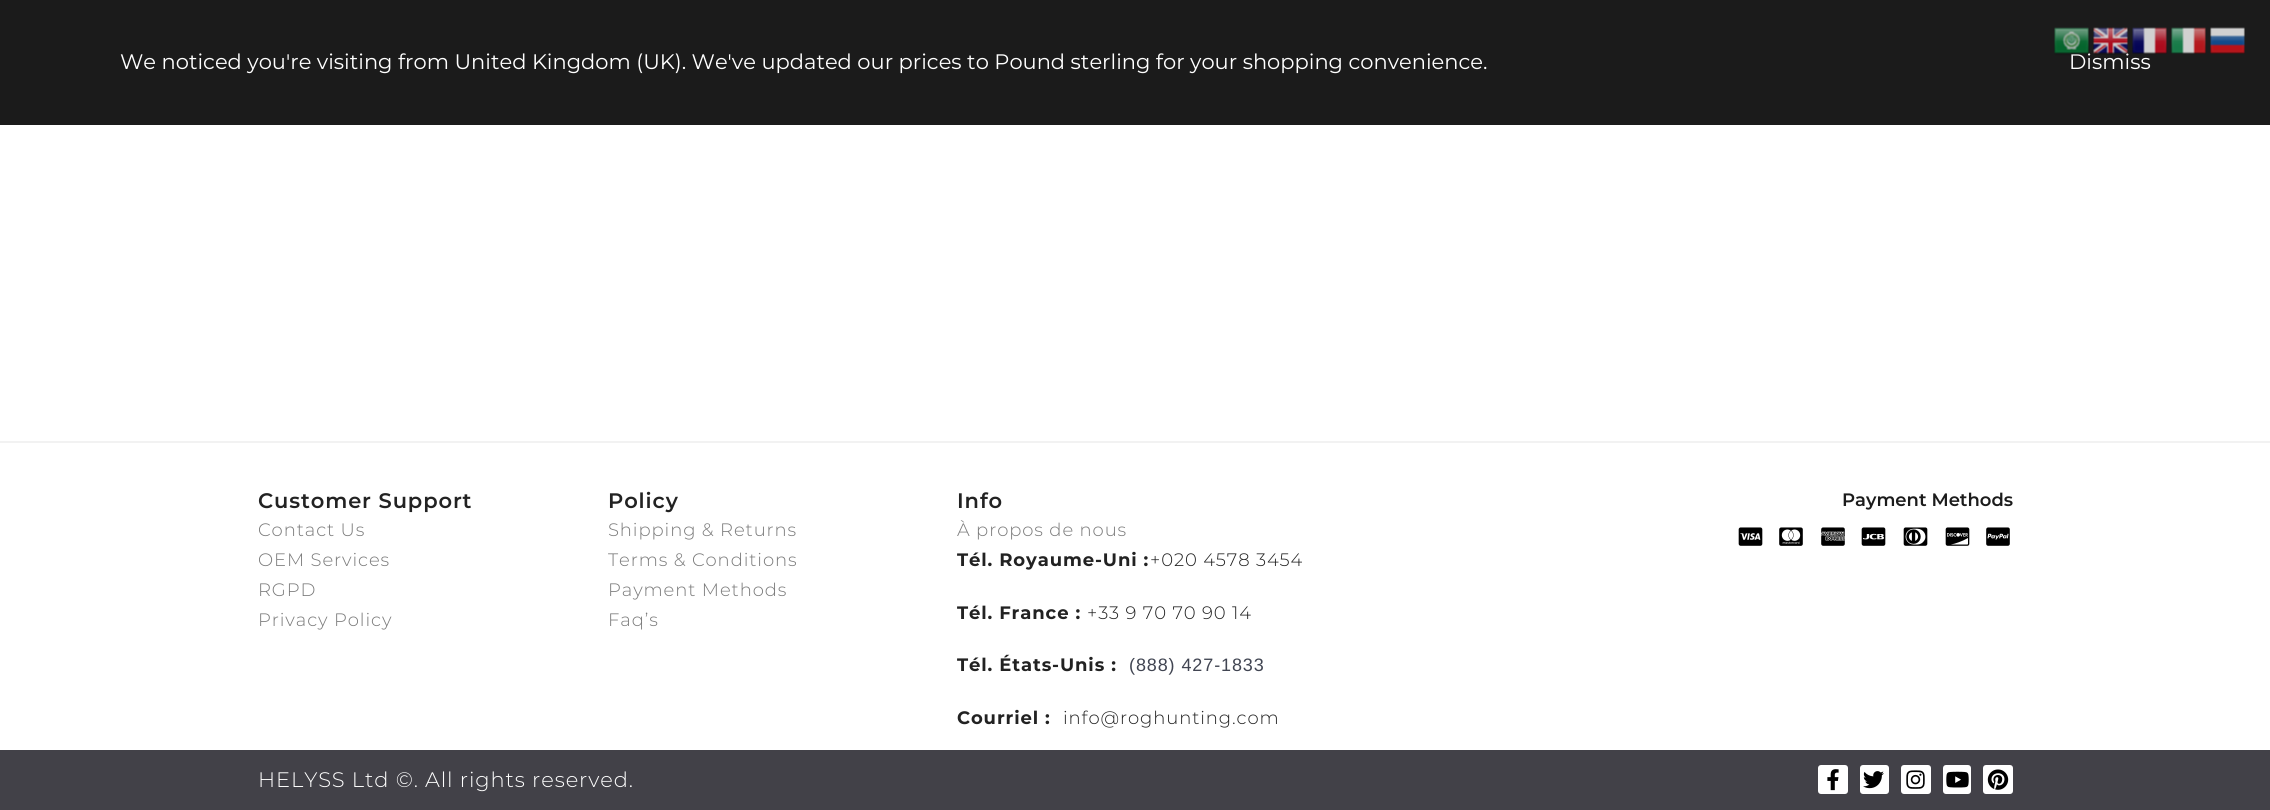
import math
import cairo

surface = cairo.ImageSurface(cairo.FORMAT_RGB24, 2270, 810)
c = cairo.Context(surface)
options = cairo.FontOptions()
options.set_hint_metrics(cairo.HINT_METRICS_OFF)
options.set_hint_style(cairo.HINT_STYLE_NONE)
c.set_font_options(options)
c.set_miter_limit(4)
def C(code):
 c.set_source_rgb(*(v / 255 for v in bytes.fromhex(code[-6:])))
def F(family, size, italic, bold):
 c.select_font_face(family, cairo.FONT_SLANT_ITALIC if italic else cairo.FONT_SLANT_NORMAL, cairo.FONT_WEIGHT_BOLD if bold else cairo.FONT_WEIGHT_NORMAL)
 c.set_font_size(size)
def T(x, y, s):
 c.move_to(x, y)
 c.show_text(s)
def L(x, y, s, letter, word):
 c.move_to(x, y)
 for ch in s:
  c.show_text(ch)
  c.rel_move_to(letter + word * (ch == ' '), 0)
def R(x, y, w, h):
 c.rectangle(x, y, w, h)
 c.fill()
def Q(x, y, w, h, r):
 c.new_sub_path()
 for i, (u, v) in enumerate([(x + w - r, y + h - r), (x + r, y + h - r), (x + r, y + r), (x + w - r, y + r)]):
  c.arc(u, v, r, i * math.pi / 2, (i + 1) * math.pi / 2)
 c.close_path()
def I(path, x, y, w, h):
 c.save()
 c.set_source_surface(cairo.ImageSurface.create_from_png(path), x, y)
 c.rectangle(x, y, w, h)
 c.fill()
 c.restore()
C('ffffff')
c.paint()
C('1b1b1b')
R(0,0,2270,125)
F('Montserrat',21,0,0)
C('ffffff')
T(2069,69,'Dismiss')
I('1.png',2054,27,36,29)
I('2.png',2093,27,35,28)
I('3.png',2132,27,35,27)
I('4.png',2171,27,35,27)
I('5.png',2210,27,35,27)
T(120,69,'We noticed you\'re visiting from United Kingdom (UK). We\'ve updated our prices to Pound sterling for your shopping convenience.')
C('f2f2f2')
R(0,441,2270,2)
F('Montserrat SemiBold',21,0,0)
C('222222')
L(258,508,'Customer Support',.9,0)
F('Montserrat Light',18,0,0)
C('7a7a7a')
L(258,536,'Contact Us',.9,0)
L(258,566,'OEM Services',.9,0)
L(258,596,'RGPD',.9,0)
L(258,626,'Privacy Policy',.9,0)
F('Montserrat SemiBold',21,0,0)
C('222222')
L(608,508,'Policy',.9,0)
F('Montserrat Light',18,0,0)
C('7a7a7a')
L(608,536,'Shipping & Returns',.9,0)
L(608,566,'Terms & Conditions',.9,0)
L(608,596,'Payment Methods',.9,0)
L(608,626,'Faq’s',.9,0)
F('Montserrat SemiBold',21,0,0)
C('222222')
L(957,508,'Info',.9,0)
F('Montserrat Light',18,0,0)
C('7a7a7a')
L(957,536,'À propos de nous',.9,0)
F('Montserrat',18,0,1)
C('222222')
L(957,566,'Tél. Royaume-Uni :',.9,0)
F('Montserrat Light',18,0,0)
L(1150,566,'+020 4578 3454',.9,0)
F('Montserrat',18,0,1)
L(957,619,'Tél. France :',.9,0)
F('Montserrat Light',18,0,0)
L(1087,619,'+33 9 70 70 90 14',.9,0)
F('Montserrat',18,0,1)
L(957,671,'Tél. États-Unis :',.9,0)
F('Liberation Sans',18,0,0)
C('414552')
L(1129,671,'(888) 427-1833',.9,0)
F('Montserrat',18,0,1)
C('222222')
L(957,724,'Courriel :',.9,0)
F('Montserrat Light',18,0,0)
L(1063,724,'info@roghunting.com',.9,0)
F('Montserrat SemiBold',18,0,0)
C('1b1b1b')
T(1842,506,'Payment Methods')
I('6.png',1738,527,25,19)
I('7.png',1779,527,24,19)
I('8.png',1821,527,24,19)
I('9.png',1861,527,25,19)
I('10.png',1903,527,25,19)
I('11.png',1945,527,25,19)
I('12.png',1986,527,24,19)
C('424148')
R(0,750,2270,60)
F('Montserrat Light',21,0,0)
C('ffffff')
L(258,787,'HELYSS Ltd ©. All rights reserved.',.9,0)
Q(1818,765,30,29,3)
c.fill()
I('13.png',1827,769,12,22)
Q(1860,765,29,29,3)
c.fill()
I('14.png',1863,771,21,18)
Q(1901,765,30,29,3)
c.fill()
I('15.png',1906,770,19,19)
Q(1943,765,28,29,3)
c.fill()
I('16.png',1946,771,23,17)
Q(1983,765,30,29,3)
c.fill()
I('17.png',1987,769,22,21)
surface.write_to_png('o.png')
